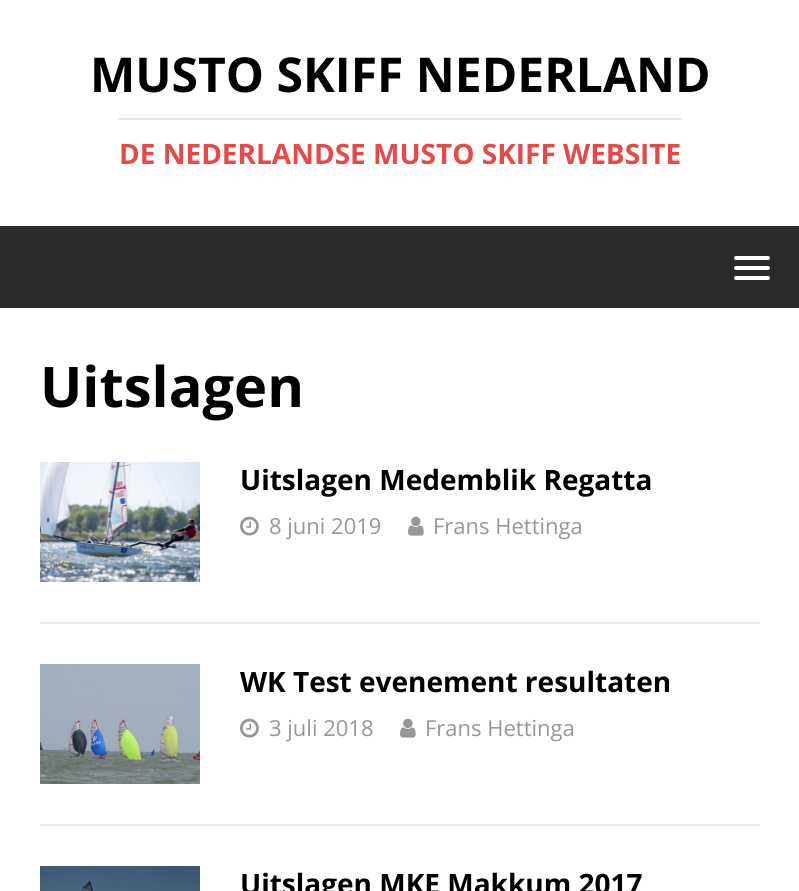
import math
import cairo

surface = cairo.ImageSurface(cairo.FORMAT_RGB24, 799, 891)
c = cairo.Context(surface)
options = cairo.FontOptions()
options.set_hint_metrics(cairo.HINT_METRICS_OFF)
options.set_hint_style(cairo.HINT_STYLE_NONE)
c.set_font_options(options)
c.set_miter_limit(4)
def C(code):
 c.set_source_rgb(*(v / 255 for v in bytes.fromhex(code[-6:])))
def F(family, size, italic, bold):
 c.select_font_face(family, cairo.FONT_SLANT_ITALIC if italic else cairo.FONT_SLANT_NORMAL, cairo.FONT_WEIGHT_BOLD if bold else cairo.FONT_WEIGHT_NORMAL)
 c.set_font_size(size)
def T(x, y, s):
 c.move_to(x, y)
 c.show_text(s)
def R(x, y, w, h):
 c.rectangle(x, y, w, h)
 c.fill()
def Q(x, y, w, h, r):
 c.new_sub_path()
 for i, (u, v) in enumerate([(x + w - r, y + h - r), (x + r, y + h - r), (x + r, y + r), (x + w - r, y + r)]):
  c.arc(u, v, r, i * math.pi / 2, (i + 1) * math.pi / 2)
 c.close_path()
def I(path, x, y, w, h):
 c.save()
 c.set_source_surface(cairo.ImageSurface.create_from_png(path), x, y)
 c.rectangle(x, y, w, h)
 c.fill()
 c.restore()
C('ffffff')
c.paint()
F('Open Sans',48,0,1)
C('000000')
T(90,92,'MUSTO SKIFF NEDERLAND')
C('e5e5e5')
R(118,118,564,2)
F('Open Sans',28,0,1)
C('e64946')
T(119,164,'DE NEDERLANDSE MUSTO SKIFF WEBSITE')
C('2a2a2a')
R(0,226,799,82)
C('ffffff')
Q(734,256,36,4,2)
c.fill()
Q(734,266,36,4,2)
c.fill()
Q(734,276,36,4,2)
c.fill()
F('Open Sans',56,0,1)
C('000000')
T(40,407,'Uitslagen')
C('ebebeb')
R(40,622,720,2)
I('1.png',40,462,160,120)
F('Open Sans',28,0,1)
C('000000')
T(240,490,'Uitslagen Medemblik Regatta')
I('2.png',240,516,19,20)
F('Open Sans',22,0,0)
C('979797')
T(269,534,'8 juni 2019')
I('3.png',408,516,16,20)
T(433,534,'Frans Hettinga')
C('ebebeb')
R(40,824,720,2)
I('4.png',40,664,160,120)
F('Open Sans',28,0,1)
C('000000')
T(240,692,'WK Test evenement resultaten')
I('2.png',240,718,19,20)
F('Open Sans',22,0,0)
C('979797')
T(269,736,'3 juli 2018')
I('3.png',400,718,16,20)
T(425,736,'Frans Hettinga')
I('5.png',40,866,160,25)
F('Open Sans',28,0,1)
C('000000')
T(240,894,'Uitslagen MKE Makkum 2017')
surface.write_to_png('o.png')
